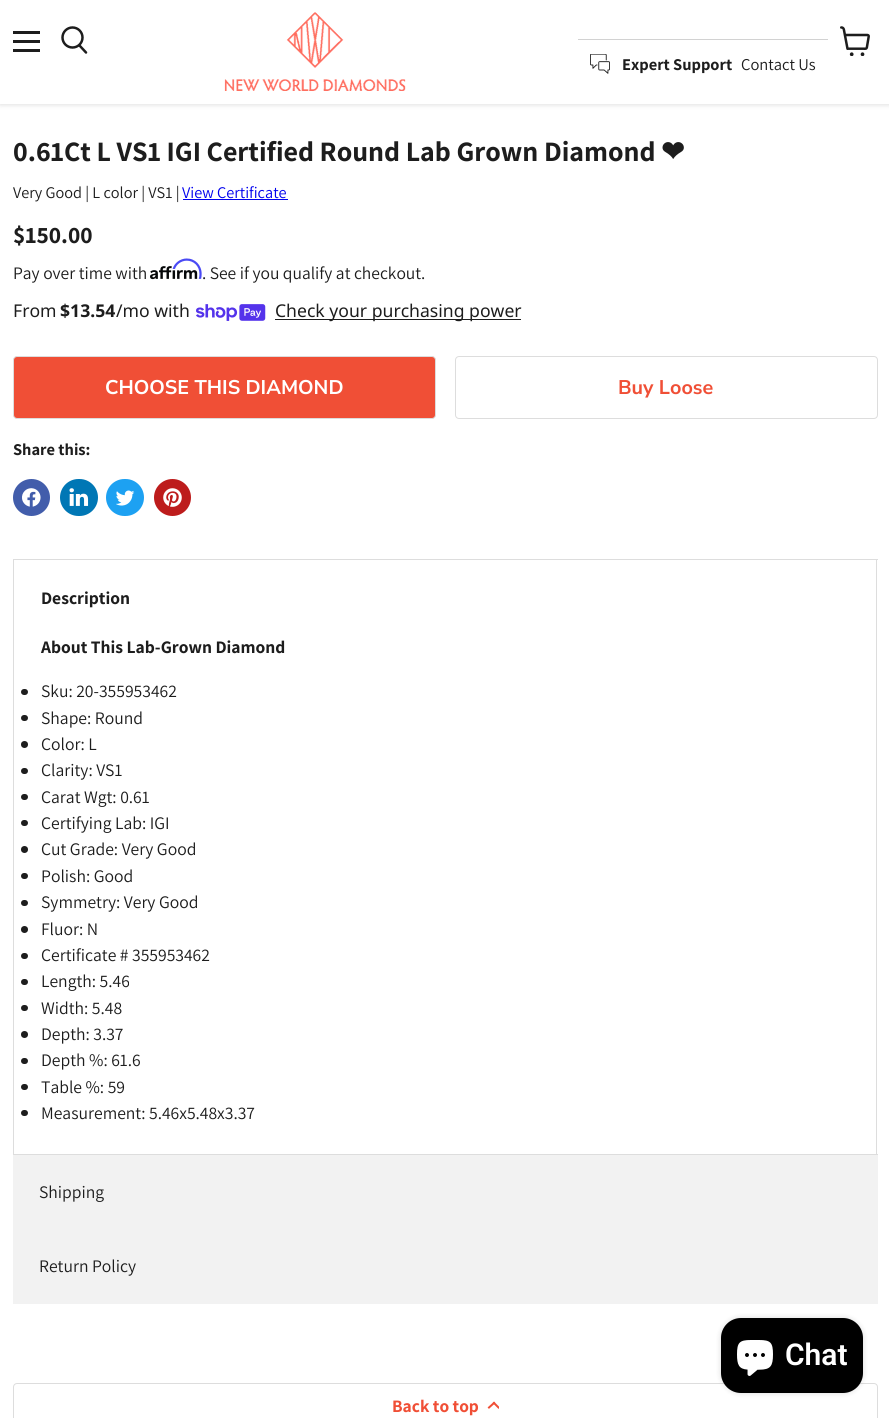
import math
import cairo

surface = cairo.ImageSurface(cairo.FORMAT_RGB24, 889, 1418)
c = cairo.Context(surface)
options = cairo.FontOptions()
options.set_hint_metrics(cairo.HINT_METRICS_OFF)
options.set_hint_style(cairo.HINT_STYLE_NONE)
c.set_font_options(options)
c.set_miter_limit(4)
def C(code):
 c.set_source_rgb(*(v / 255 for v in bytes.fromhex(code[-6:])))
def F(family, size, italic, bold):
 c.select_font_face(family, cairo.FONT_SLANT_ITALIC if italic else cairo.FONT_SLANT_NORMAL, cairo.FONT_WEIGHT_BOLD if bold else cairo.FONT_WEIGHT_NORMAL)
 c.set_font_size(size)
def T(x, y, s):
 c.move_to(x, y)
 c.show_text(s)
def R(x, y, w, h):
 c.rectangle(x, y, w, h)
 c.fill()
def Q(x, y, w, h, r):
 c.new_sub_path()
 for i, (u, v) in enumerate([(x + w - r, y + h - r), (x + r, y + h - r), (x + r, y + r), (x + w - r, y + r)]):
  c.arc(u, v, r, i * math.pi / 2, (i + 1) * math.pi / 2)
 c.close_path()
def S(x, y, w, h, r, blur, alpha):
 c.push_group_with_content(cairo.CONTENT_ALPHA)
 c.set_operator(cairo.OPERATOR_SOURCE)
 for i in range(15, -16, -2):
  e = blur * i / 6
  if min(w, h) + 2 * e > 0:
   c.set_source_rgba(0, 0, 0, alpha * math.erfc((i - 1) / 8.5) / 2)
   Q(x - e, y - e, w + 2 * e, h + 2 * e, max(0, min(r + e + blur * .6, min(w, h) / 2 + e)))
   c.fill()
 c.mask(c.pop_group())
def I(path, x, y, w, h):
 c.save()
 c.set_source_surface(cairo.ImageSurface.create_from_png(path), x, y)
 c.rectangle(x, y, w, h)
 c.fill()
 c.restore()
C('ffffff')
c.paint()
C('808080')
S(0,1,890,104,0,2.5,.25)
C('ffffff')
R(0,0,889,104)
C('1d1d1d')
R(13,31,27,3)
R(13,40,27,3)
R(13,49,27,3)
c.new_path()
c.move_to(86,52.5)
c.line_to(79.5,45.5)
c.set_line_width(2.5)
c.set_line_cap(cairo.LINE_CAP_ROUND)
c.stroke()
c.arc(72.5,37.5,10,0,2 * math.pi)
c.set_line_cap(cairo.LINE_CAP_BUTT)
c.stroke()
I('1.png',840,26,30,30)
I('2.png',224,12,182,79)
C('d2d2d2')
R(578,39,250,1)
I('3.png',590,54,20,20)
F('Assistant',16.5,0,1)
C('1d1d1d')
T(622,70,'Expert Support')
F('Assistant',16.5,0,0)
T(741,70,'Contact Us')
F('Assistant',28.1,0,1)
T(13,161,'0.61Ct L VS1 IGI Certified Round Lab Grown Diamond')
F('DejaVu Sans',28.1,0,1)
T(661,161,'❤')
F('Assistant',16.25,0,0)
T(13,198,'Very Good | L color | VS1 |')
C('0000ee')
T(182,198,'View Certificate')
R(183,199,105,1)
F('Assistant',23.5,0,1)
C('1d1d1d')
T(13,243,'$150.00')
F('Assistant',17.5,0,0)
T(13,279,'Pay over time with')
I('5.png',150,266,48,14)
I('4.png',172,258,30,21)
T(202,279,'. See if you qualify at checkout.')
F('Noto Sans',17.6,0,0)
T(13,317,'From')
F('Noto Sans',17.6,0,1)
T(60,317,'$13.54')
F('Noto Sans',17.6,0,0)
T(116,317,'/mo with')
I('6.png',196,304,70,17)
R(275,319,246,1)
T(275,317,'Check your purchasing power')
C('f04f36')
Q(13.5,356.5,422,62,3.5)
c.fill_preserve()
C('dddddd')
c.set_line_width(1)
c.stroke()
F('Nunito Sans',19.8,0,1)
C('ffffff')
T(105,394,'CHOOSE THIS DIAMOND')
Q(455.5,356.5,422,62,3.5)
C('dddddd')
c.stroke()
C('f04f36')
T(618,394,'Buy Loose')
F('Assistant',16.5,0,1)
C('1d1d1d')
T(13,455,'Share this:')
C('425dab')
c.new_path()
c.arc(31.5,497.5,18.5,0,2 * math.pi)
c.fill()
I('7.png',22,488,19,19)
C('0077b5')
Q(60,479,38,37,18.5)
c.fill()
I('8.png',69,488,20,18)
C('1da1f2')
Q(106,479,38,37,18.5)
c.fill()
I('9.png',116,490,19,16)
C('bd1c1c')
c.arc(172.5,497.5,18.5,0,2 * math.pi)
c.fill()
I('10.png',163,488,19,19)
C('dddddd')
R(13,559,865,1)
R(876,559,1,596)
R(13,559,1,76)
F('Assistant',17.6,0,1)
C('1d1d1d')
T(41,604,'Description')
C('dddddd')
R(13,1154,865,1)
R(13,635,1,520)
C('1d1d1d')
T(41,653,'About This Lab-Grown Diamond')
Q(21,689,7,6,3)
c.fill()
F('Assistant',17.6,0,0)
T(41,697,'Sku: 20-355953462')
Q(21,715,7,6,3)
c.fill()
T(41,724,'Shape: Round')
c.new_path()
c.arc(24.5,744.5,3.5,0,2 * math.pi)
c.fill()
T(41,750,'Color: L')
Q(21,768,7,6,3)
c.fill()
T(41,776,'Clarity: VS1')
Q(21,794,7,6,3)
c.fill()
T(41,803,'Carat Wgt: 0.61')
Q(21,820,7,6,3)
c.fill()
T(41,829,'Certifying Lab: IGI')
c.new_path()
c.arc(24.5,849.5,3.5,0,2 * math.pi)
c.fill()
T(41,855,'Cut Grade: Very Good')
Q(21,873,7,6,3)
c.fill()
T(41,882,'Polish: Good')
Q(21,900,7,6,3)
c.fill()
T(41,908,'Symmetry: Very Good')
c.new_path()
c.arc(24.5,929.5,3.5,0,2 * math.pi)
c.fill()
T(41,935,'Fluor: N')
Q(21,953,7,6,3)
c.fill()
T(41,961,'Certificate # 355953462')
Q(21,979,7,6,3)
c.fill()
T(41,987,'Length: 5.46')
Q(21,1005,7,6,3)
c.fill()
T(41,1014,'Width: 5.48')
c.new_path()
c.arc(24.5,1034.5,3.5,0,2 * math.pi)
c.fill()
T(41,1040,'Depth: 3.37')
Q(21,1058,7,6,3)
c.fill()
T(41,1066,'Depth %: 61.6')
Q(21,1084,7,6,3)
c.fill()
T(41,1093,'Table %: 59')
Q(21,1110,7,6,3)
c.fill()
T(41,1119,'Measurement: 5.46x5.48x3.37')
C('f2f2f2')
R(13,1155,865,149)
C('1d1d1d')
T(39,1198,'Shipping')
T(39,1272,'Return Policy')
Q(13.5,1383.5,864,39,3.5)
C('dddddd')
c.stroke()
C('000000')
S(721,1318,142,75,20,3,.15)
C('000000')
Q(721,1318,142,75,20)
c.fill()
I('11.png',737,1340,36,36)
F('Roboto SemiBold',30,0,0)
C('ffffff')
T(785,1365,'Chat')
F('Assistant',17.5,0,1)
C('f04f36')
T(392,1412,'Back to top')
c.new_path()
c.move_to(494,1403)
c.line_to(489,1407.5)
c.set_line_width(2)
c.set_line_cap(cairo.LINE_CAP_SQUARE)
c.stroke()
c.save()
c.rectangle(486,1401,13,9)
c.clip()
c.new_path()
c.move_to(494,1403)
c.line_to(498.5,1407.5)
c.stroke()
c.restore()
surface.write_to_png('o.png')
